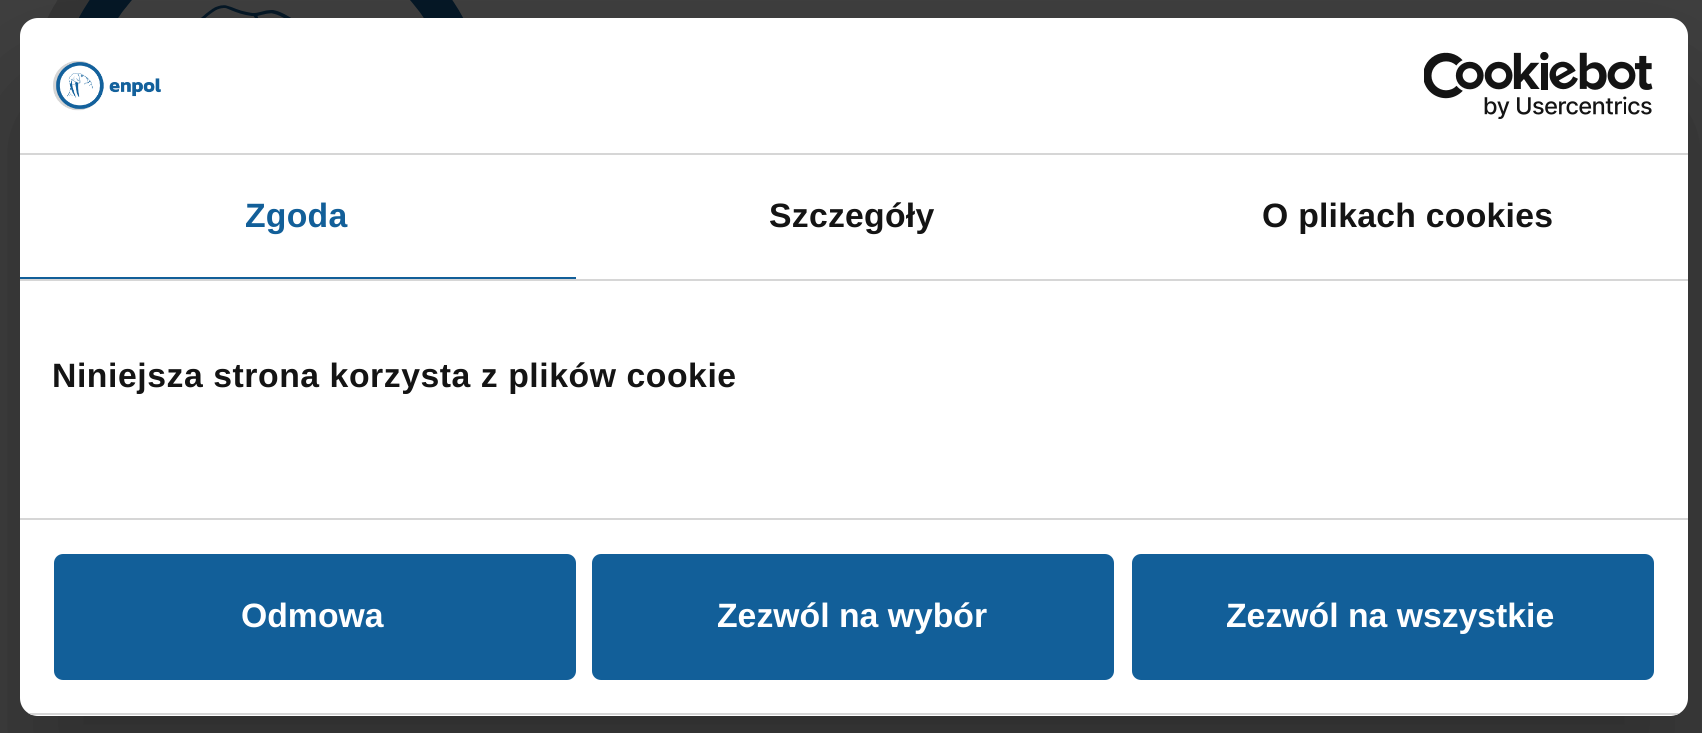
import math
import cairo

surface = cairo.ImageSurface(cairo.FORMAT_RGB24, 1702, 733)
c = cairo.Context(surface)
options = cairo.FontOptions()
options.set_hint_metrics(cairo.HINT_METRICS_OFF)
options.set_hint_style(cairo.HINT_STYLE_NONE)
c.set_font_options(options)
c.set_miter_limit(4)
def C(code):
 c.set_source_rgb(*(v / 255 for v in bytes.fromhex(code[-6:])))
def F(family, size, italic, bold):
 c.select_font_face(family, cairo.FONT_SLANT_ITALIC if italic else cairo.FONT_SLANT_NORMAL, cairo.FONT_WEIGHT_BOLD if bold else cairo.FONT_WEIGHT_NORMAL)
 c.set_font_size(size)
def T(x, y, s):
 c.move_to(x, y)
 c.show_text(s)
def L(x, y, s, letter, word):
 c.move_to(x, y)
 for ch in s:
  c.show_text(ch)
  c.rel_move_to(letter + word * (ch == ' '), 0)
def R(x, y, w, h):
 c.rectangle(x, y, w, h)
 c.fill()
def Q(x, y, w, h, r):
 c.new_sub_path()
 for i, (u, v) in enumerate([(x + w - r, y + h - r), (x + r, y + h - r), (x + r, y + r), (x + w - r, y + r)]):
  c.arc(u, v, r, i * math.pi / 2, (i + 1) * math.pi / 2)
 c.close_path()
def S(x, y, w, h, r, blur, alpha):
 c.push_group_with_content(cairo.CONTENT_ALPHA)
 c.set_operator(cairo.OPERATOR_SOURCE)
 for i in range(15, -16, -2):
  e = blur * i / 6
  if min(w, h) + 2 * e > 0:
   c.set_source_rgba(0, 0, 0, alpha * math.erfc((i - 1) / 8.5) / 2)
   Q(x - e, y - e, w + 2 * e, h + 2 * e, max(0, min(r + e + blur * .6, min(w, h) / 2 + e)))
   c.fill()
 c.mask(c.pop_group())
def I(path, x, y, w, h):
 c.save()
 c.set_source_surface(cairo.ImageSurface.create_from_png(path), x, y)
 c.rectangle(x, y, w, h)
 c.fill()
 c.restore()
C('404040')
c.paint()
I('1.png',47,0,417,18)
C('000000')
S(20,90,1668,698,18,76.5,.3)
C('ffffff')
Q(20,18,1668,698,18)
c.fill()
C('d6d6d6')
R(20,153,1668,2)
I('2.png',53,60,108,51)
I('3.png',1424,52,229,67)
R(20,279,1668,2)
C('125f99')
R(20,277,556,2)
F('Liberation Sans',33.75,0,1)
L(245,227,'Zgoda',.25,0)
C('141414')
L(769,227,'Szczegóły',.25,0)
L(1262,227,'O plikach cookies',.25,0)
C('d6d6d6')
R(20,518,1668,2)
C('141414')
L(52,387,'Niniejsza strona korzysta z plików cookie',.55,0)
c.save()
Q(20,18,1668,698,18)
c.clip()
C('d6d6d6')
R(20,713,1668,2)
c.restore()
C('125f99')
Q(56.5,556.5,517,121,6.5)
c.fill_preserve()
c.set_line_width(5)
c.stroke()
C('ffffff')
T(241,627,'Odmowa')
C('125f99')
Q(594.5,556.5,517,121,6.5)
c.fill_preserve()
c.stroke()
C('ffffff')
T(717,627,'Zezwól na wybór')
C('125f99')
Q(1134.5,556.5,517,121,6.5)
c.fill_preserve()
c.stroke()
C('ffffff')
T(1226,627,'Zezwól na wszystkie')
surface.write_to_png('o.png')
